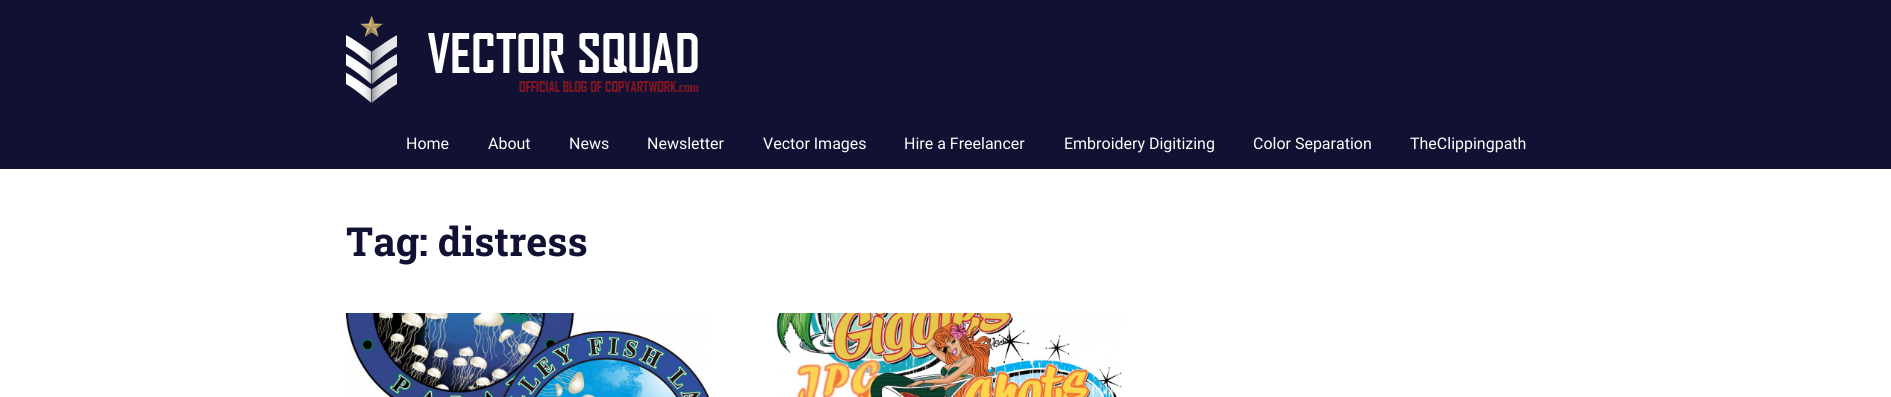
import math
import cairo

surface = cairo.ImageSurface(cairo.FORMAT_RGB24, 1891, 397)
c = cairo.Context(surface)
options = cairo.FontOptions()
options.set_hint_metrics(cairo.HINT_METRICS_OFF)
options.set_hint_style(cairo.HINT_STYLE_NONE)
c.set_font_options(options)
c.set_miter_limit(4)
def C(code):
 c.set_source_rgb(*(v / 255 for v in bytes.fromhex(code[-6:])))
def F(family, size, italic, bold):
 c.select_font_face(family, cairo.FONT_SLANT_ITALIC if italic else cairo.FONT_SLANT_NORMAL, cairo.FONT_WEIGHT_BOLD if bold else cairo.FONT_WEIGHT_NORMAL)
 c.set_font_size(size)
def T(x, y, s):
 c.move_to(x, y)
 c.show_text(s)
def R(x, y, w, h):
 c.rectangle(x, y, w, h)
 c.fill()
def I(path, x, y, w, h):
 c.save()
 c.set_source_surface(cairo.ImageSurface.create_from_png(path), x, y)
 c.rectangle(x, y, w, h)
 c.fill()
 c.restore()
C('ffffff')
c.paint()
C('111133')
R(0,0,1891,169)
I('1.png',346,16,353,87)
F('Roboto',16,0,0)
C('ffffff')
T(406,149,'Home')
T(488,149,'About')
T(569,149,'News')
T(647,149,'Newsletter')
T(763,149,'Vector Images')
T(904,149,'Hire a Freelancer')
T(1064,149,'Embroidery Digitizing')
T(1253,149,'Color Separation')
T(1410,149,'TheClippingpath')
F('Roboto Slab',40,0,1)
C('111133')
T(346,256,'Tag: distress')
I('2.png',346,313,364,84)
I('3.png',776,313,346,84)
surface.write_to_png('o.png')
